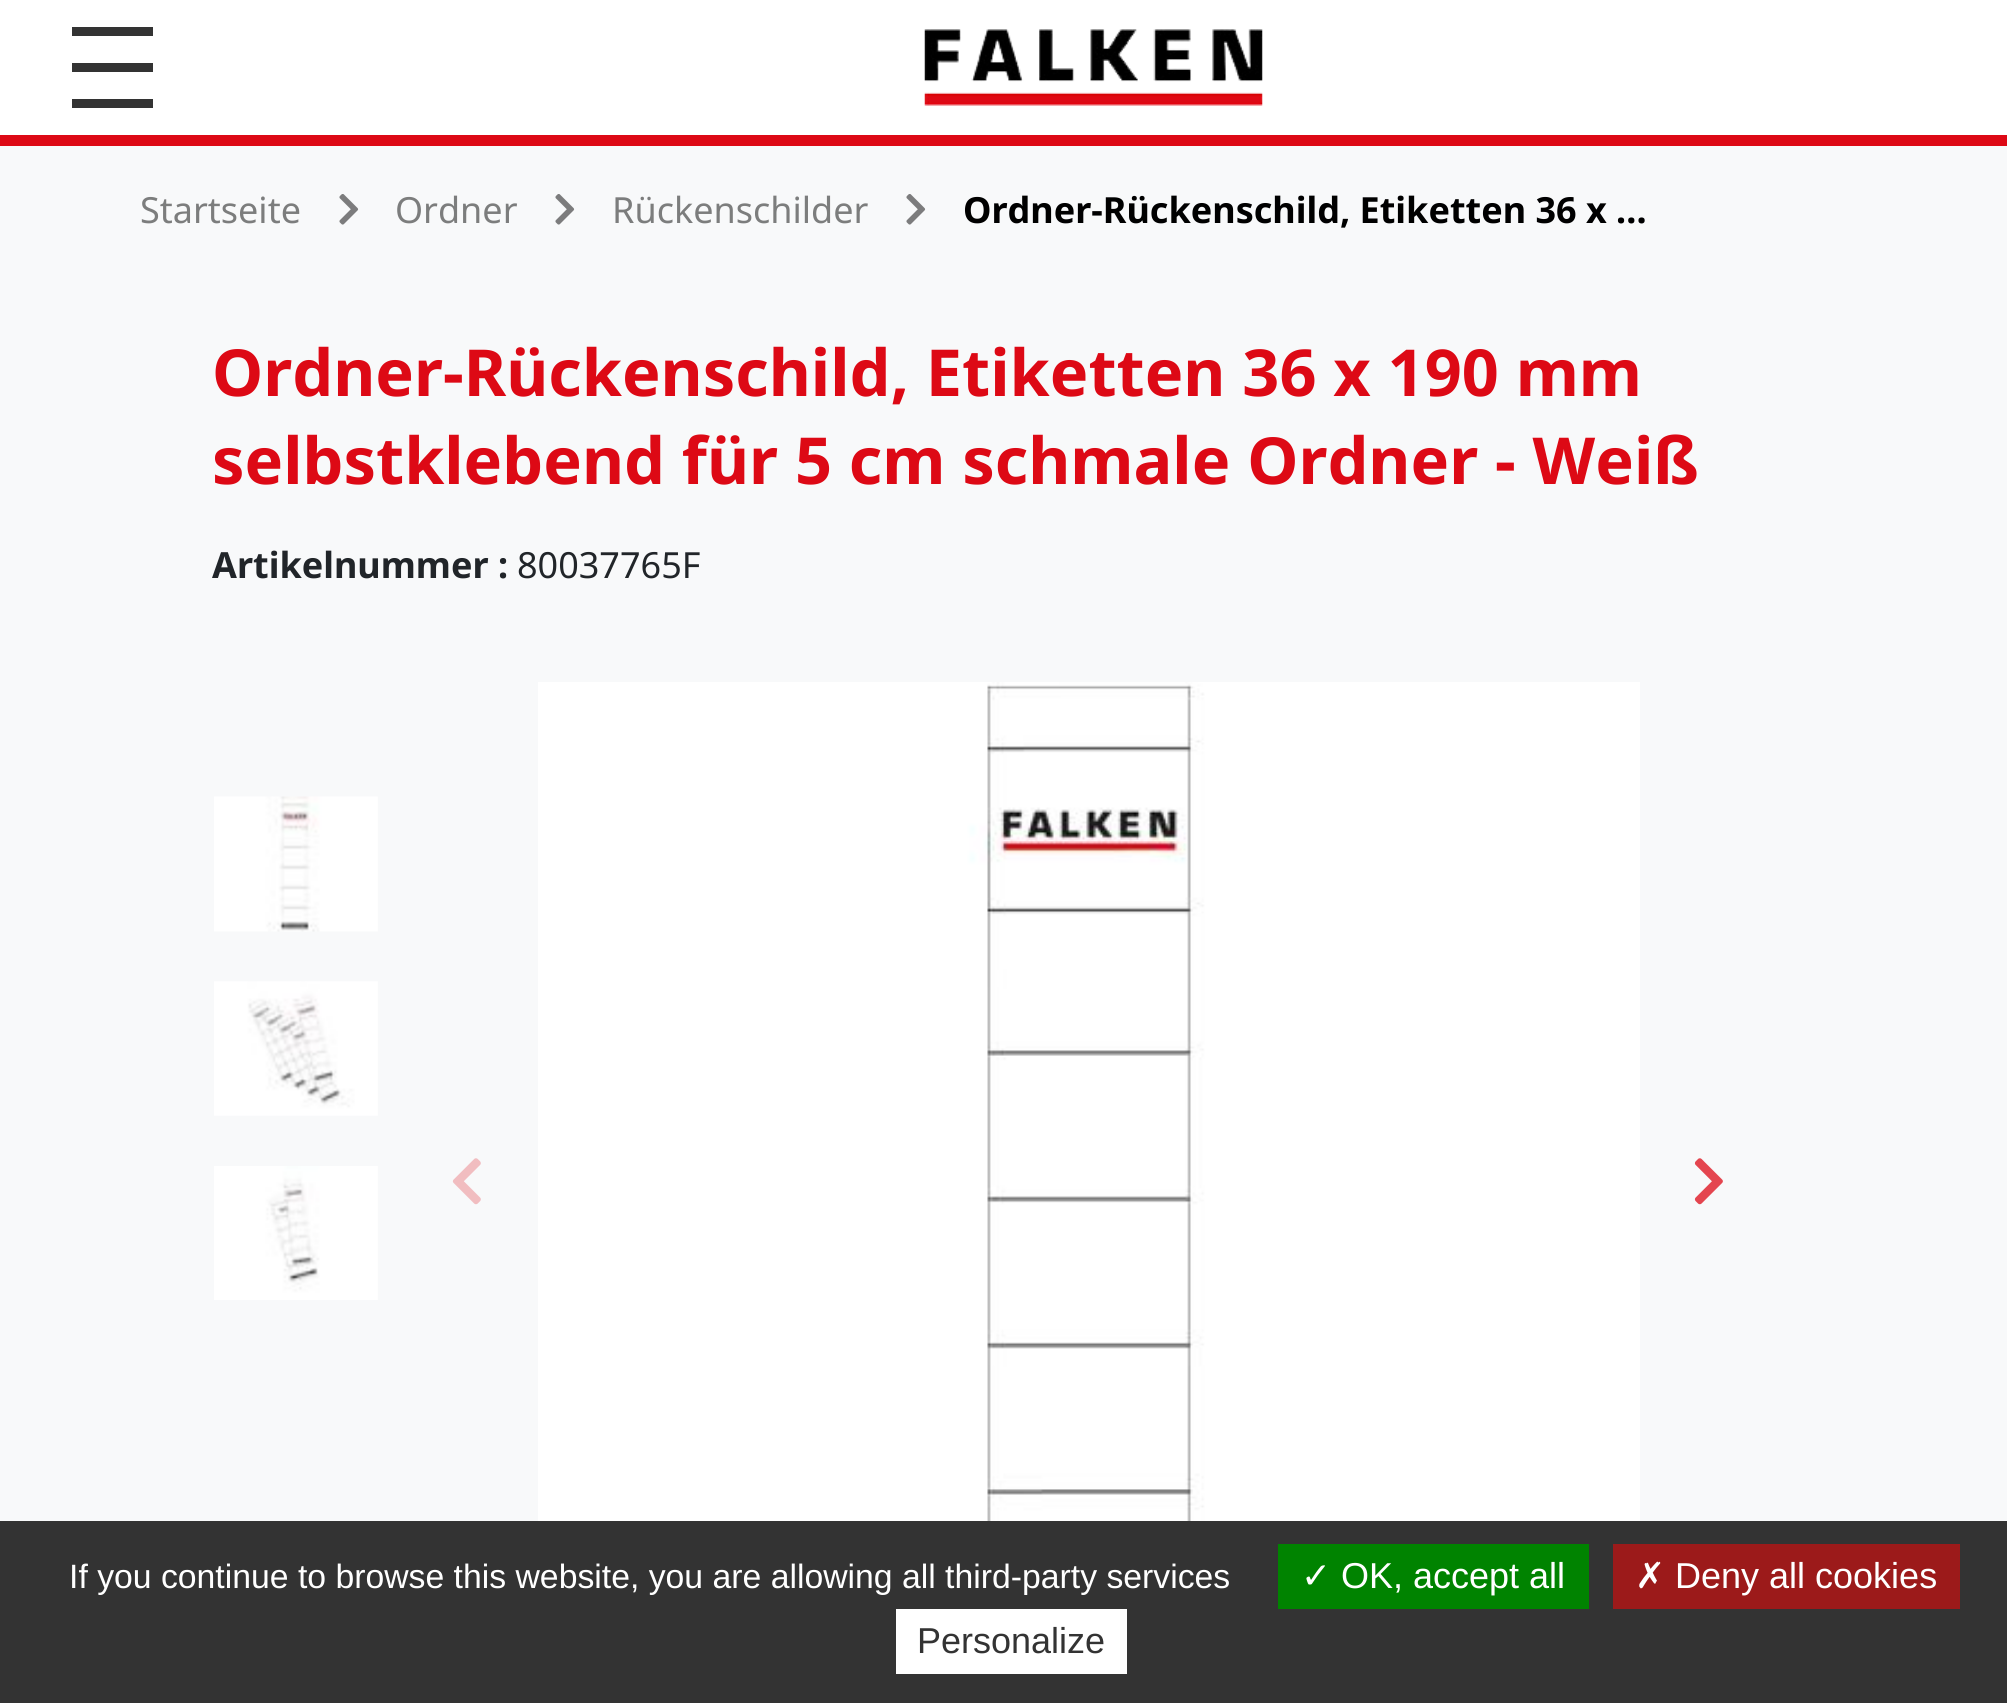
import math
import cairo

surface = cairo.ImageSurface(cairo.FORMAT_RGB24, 2007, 1703)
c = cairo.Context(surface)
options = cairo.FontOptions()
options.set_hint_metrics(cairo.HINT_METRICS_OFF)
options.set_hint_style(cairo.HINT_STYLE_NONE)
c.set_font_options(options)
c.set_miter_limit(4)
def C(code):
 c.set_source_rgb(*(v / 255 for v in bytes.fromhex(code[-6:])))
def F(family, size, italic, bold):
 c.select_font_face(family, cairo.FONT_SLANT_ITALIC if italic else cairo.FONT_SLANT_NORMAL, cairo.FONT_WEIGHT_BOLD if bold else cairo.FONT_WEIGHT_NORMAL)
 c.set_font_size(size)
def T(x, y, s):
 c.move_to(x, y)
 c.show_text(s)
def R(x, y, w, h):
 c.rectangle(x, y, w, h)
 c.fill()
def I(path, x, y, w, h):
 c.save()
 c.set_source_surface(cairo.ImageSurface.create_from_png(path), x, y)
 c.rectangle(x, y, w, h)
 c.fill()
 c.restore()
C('ffffff')
c.paint()
C('dd0915')
R(0,135,2007,11)
C('333333')
R(72,63,81,9)
R(72,27,81,9)
R(72,99,81,9)
I('1.png',924,29,339,77)
C('f8f9fa')
R(0,146,2007,1375)
F('Noto Sans',36,0,0)
C('7c7d7d')
T(140,223,'Startseite')
I('2.png',339,194,20,31)
T(395,223,'Ordner')
I('2.png',555,194,20,31)
T(612,223,'Rückenschilder')
I('2.png',906,194,20,31)
F('Noto Sans',36,0,1)
C('000000')
T(963,223,'Ordner-Rückenschild, Etiketten 36 x …')
F('Noto Sans',64.8,0,1)
C('dd0915')
T(212,396,'Ordner-Rückenschild, Etiketten 36 x 190 mm')
T(212,484,'selbstklebend für 5 cm schmale Ordner - Weiß')
F('Noto Sans',36,0,1)
C('212529')
T(212,578,'Artikelnummer :')
F('Noto Sans',36,0,0)
T(517,578,'80037765F')
I('3.png',214,796,164,136)
I('4.png',214,981,164,135)
I('5.png',214,1166,164,134)
I('6.png',452,1158,29,47)
I('7.png',538,682,1102,839)
I('8.png',1694,1158,29,47)
C('333333')
R(0,1521,2007,182)
F('Liberation Sans',33.75,0,0)
C('ffffff')
T(69,1588,'If you continue to browse this website, you are allowing all third-party services')
C('008300')
R(1278,1544,311,65)
F('DejaVu Sans',36,0,0)
C('ffffff')
T(1301,1588,'✓')
F('Liberation Sans',36,0,0)
T(1341,1588,'OK, accept all')
C('9c1a1a')
R(1613,1544,347,65)
F('DejaVu Sans',36,0,0)
C('ffffff')
T(1635,1588,'✗')
F('Liberation Sans',36,0,0)
T(1675,1588,'Deny all cookies')
R(896,1609,231,65)
C('333333')
T(917,1653,'Personalize')
surface.write_to_png('o.png')
